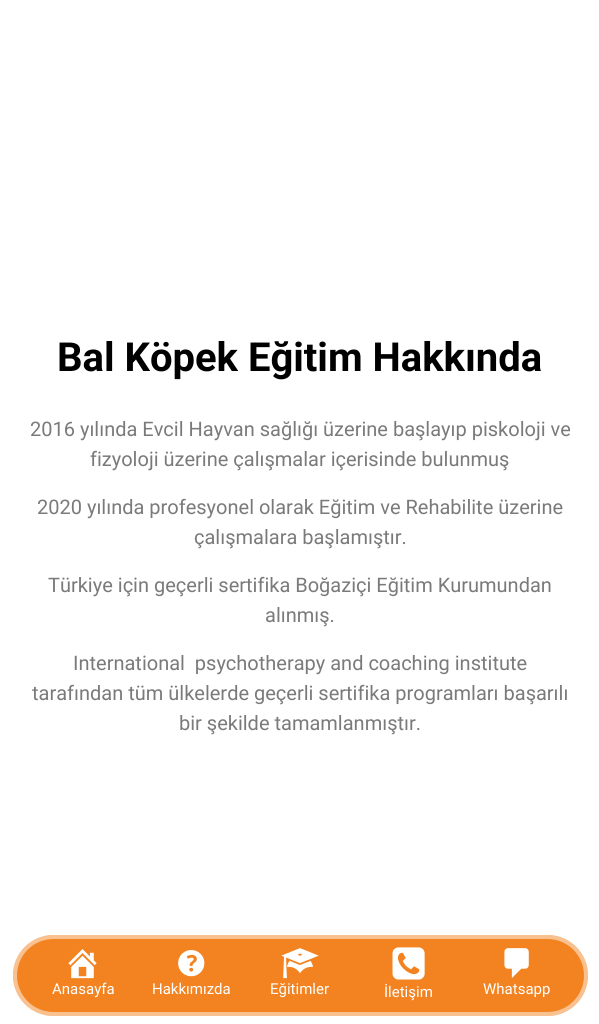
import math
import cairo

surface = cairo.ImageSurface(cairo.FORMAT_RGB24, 599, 1024)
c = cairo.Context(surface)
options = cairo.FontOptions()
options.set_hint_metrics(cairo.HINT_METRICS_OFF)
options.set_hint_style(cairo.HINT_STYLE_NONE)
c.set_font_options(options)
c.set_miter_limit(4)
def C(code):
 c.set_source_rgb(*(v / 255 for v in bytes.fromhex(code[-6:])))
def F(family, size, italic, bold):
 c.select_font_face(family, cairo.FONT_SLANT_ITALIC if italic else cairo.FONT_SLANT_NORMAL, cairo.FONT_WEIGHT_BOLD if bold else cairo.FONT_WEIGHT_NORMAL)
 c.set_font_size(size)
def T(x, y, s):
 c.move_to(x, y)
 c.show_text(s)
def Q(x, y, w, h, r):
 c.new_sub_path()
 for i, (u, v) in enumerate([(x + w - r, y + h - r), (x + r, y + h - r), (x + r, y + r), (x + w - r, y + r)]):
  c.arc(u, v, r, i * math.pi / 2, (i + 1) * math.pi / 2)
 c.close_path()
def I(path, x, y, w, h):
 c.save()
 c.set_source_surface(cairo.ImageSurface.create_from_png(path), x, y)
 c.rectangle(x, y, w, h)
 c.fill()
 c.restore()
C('ffffff')
c.paint()
F('Roboto',40,0,1)
C('000000')
T(57,371,'Bal Köpek Eğitim Hakkında')
F('Roboto',20,0,0)
C('7a7a7a')
T(30,436,'2016 yılında Evcil Hayvan sağlığı üzerine başlayıp piskoloji ve')
T(90,466,'fizyoloji üzerine çalışmalar içerisinde bulunmuş')
T(37,514,'2020 yılında profesyonel olarak Eğitim ve Rehabilite üzerine')
T(194,544,'çalışmalara başlamıştır.')
T(48,592,'Türkiye için geçerli sertifika Boğaziçi Eğitim Kurumundan')
T(265,622,'alınmış.')
T(73,670,'International  psychotherapy and coaching institute')
T(32,700,'tarafından tüm ülkelerde geçerli sertifika programları başarılı')
T(179,730,'bir şekilde tamamlanmıştır.')
C('f38321')
Q(13,935,575,81,40.5)
c.fill()
Q(15,937,571,77,38.5)
c.set_source_rgba(1,1,1,0.5)
c.set_line_width(4)
c.stroke()
I('1.png',68,949,29,30)
F('Roboto',15,0,0)
C('ffffff')
T(52,994,'Anasayfa')
I('2.png',178,950,27,27)
T(152,994,'Hakkımızda')
I('3.png',281,948,38,31)
T(270,994,'Eğitimler')
I('4.png',392,947,33,33)
T(384,997,'İletişim')
I('5.png',504,948,25,30)
T(483,994,'Whatsapp')
surface.write_to_png('o.png')
